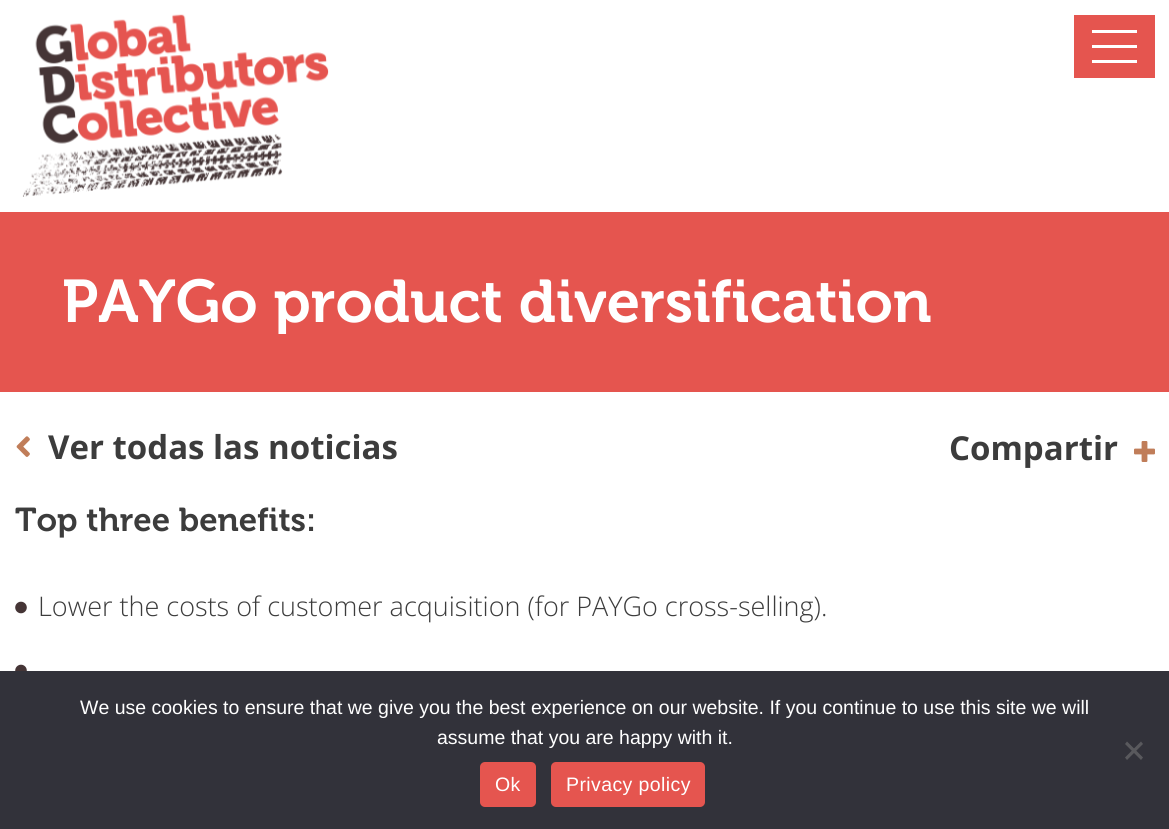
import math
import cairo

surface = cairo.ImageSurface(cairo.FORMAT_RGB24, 1169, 829)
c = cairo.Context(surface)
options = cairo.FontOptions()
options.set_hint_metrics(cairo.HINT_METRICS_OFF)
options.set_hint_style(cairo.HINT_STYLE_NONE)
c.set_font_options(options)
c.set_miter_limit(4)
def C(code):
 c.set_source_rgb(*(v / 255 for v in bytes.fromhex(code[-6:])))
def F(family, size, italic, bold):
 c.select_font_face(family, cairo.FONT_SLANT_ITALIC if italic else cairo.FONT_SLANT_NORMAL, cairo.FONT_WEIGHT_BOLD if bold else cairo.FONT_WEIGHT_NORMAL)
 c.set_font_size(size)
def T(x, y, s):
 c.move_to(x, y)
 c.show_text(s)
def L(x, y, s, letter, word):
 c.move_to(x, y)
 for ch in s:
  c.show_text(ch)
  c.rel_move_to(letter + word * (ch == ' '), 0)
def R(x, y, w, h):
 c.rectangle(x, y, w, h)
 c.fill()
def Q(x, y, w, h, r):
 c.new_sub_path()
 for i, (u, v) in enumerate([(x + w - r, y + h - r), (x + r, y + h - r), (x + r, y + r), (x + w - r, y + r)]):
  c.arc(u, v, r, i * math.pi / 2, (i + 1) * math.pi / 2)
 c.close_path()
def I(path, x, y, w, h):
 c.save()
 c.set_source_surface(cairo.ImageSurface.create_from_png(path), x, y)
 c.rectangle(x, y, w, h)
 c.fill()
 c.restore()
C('ffffff')
c.paint()
I('1.png',22,14,307,183)
C('e5554f')
R(1074,15,81,63)
C('ffffff')
R(1092,30,45,3)
R(1092,45,45,3)
R(1092,60,45,3)
C('e5554f')
R(0,212,1169,180)
F('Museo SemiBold',60,0,0)
C('ffffff')
T(62,322,'PAYGo product diversification')
I('2.png',16,436,14,21)
F('Open Sans',33,0,1)
C('3c3c3c')
T(48,459,'Ver todas las noticias')
T(949,460,'Compartir')
I('3.png',1134,441,21,21)
F('Museo SemiBold',33,0,0)
T(15,531,'Top three benefits:')
I('4.png',15,601,12,13)
F('Open Sans Light',27,0,0)
T(38,616,'Lower the costs of customer acquisition (for PAYGo cross-selling).')
I('5.png',15,664,12,7)
C('32323a')
R(0,671,1169,158)
F('Liberation Sans',19.5,0,0)
C('ffffff')
T(80,714,'We use cookies to ensure that we give you the best experience on our website. If you continue to use this site we will')
T(437,744,'assume that you are happy with it.')
C('59595d')
c.new_path()
c.move_to(1141,741.5)
c.line_to(1143,744)
c.line_to(1127,760)
c.line_to(1125,757.5)
c.close_path()
c.fill()
c.new_path()
c.move_to(1125,744)
c.line_to(1127,741.5)
c.line_to(1143,757.5)
c.line_to(1141,760)
c.close_path()
c.fill()
C('e5554f')
Q(480,762,56,45,5)
c.fill()
C('ffffff')
L(495,791,'Ok',.4,0)
C('e5554f')
Q(551,762,154,45,5)
c.fill()
C('ffffff')
L(566,791,'Privacy policy',.4,0)
surface.write_to_png('o.png')
